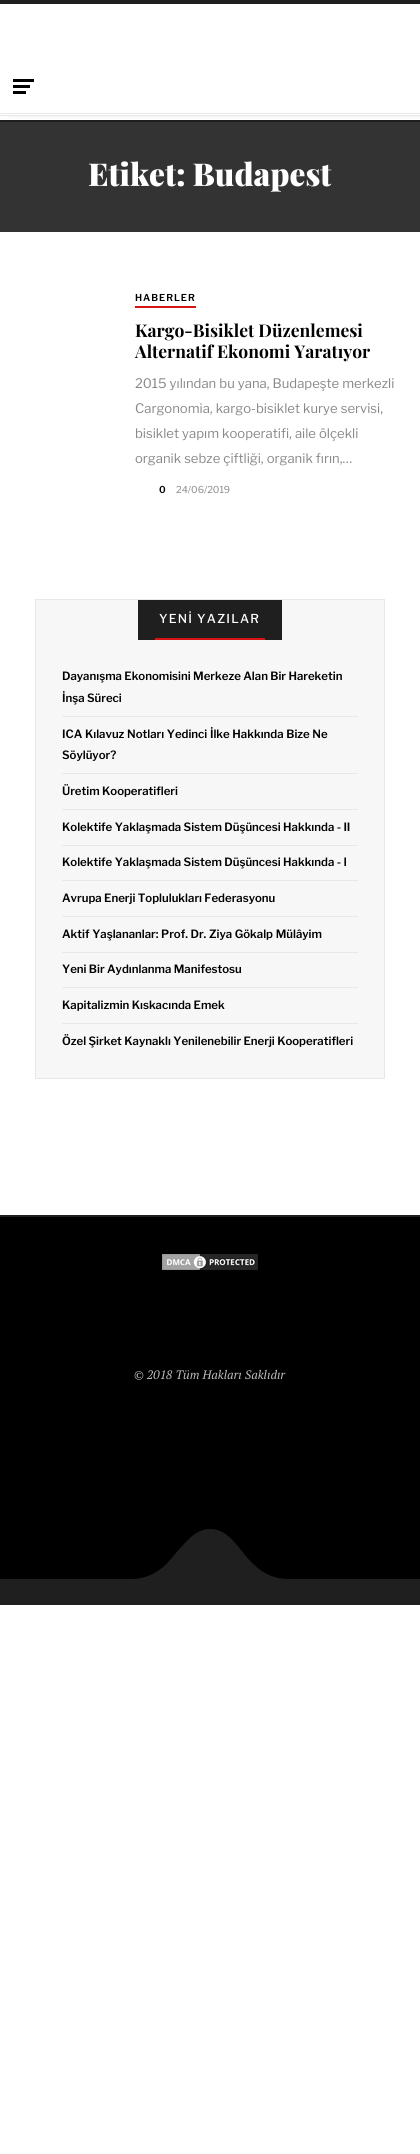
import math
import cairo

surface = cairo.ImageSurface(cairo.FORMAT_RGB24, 420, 2154)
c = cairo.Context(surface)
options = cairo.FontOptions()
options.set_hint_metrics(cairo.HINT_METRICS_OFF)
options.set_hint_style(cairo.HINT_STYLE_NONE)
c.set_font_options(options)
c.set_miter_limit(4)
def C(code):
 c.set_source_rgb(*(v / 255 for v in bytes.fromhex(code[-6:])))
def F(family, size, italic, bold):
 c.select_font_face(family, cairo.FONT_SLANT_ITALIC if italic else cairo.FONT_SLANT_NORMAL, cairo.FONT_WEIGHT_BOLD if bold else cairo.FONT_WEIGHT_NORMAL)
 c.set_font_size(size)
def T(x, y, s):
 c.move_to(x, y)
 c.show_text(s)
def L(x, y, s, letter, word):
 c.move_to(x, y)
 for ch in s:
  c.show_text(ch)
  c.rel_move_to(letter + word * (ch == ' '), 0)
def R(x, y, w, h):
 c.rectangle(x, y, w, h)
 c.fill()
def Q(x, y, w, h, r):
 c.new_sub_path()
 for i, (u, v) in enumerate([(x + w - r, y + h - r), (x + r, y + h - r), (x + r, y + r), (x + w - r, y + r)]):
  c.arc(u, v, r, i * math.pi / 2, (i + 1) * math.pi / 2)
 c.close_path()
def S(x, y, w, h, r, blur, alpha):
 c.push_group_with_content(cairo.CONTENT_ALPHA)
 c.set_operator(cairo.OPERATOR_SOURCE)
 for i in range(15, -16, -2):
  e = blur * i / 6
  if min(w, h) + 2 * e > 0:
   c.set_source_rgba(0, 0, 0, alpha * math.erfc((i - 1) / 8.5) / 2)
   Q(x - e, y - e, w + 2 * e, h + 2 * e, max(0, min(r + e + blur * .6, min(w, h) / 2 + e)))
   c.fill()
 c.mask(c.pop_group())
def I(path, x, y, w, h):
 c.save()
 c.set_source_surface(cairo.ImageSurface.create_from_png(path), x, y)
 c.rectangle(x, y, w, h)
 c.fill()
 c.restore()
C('ffffff')
c.paint()
C('1f1f1f')
R(0,0,420,4)
R(0,120,420,2)
C('333333')
R(0,122,420,110)
c.save()
c.set_fill_rule(cairo.FILL_RULE_EVEN_ODD)
c.new_path()
c.move_to(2,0)
c.line_to(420,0)
c.line_to(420,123)
c.line_to(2,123)
c.close_path()
c.move_to(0,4)
c.line_to(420,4)
c.line_to(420,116)
c.line_to(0,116)
c.close_path()
c.clip()
C('000000')
S(9,4,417,112,0,2,.1)
c.restore()
C('e8e8e8')
R(0,113,420,1)
R(0,115,420,1)
C('000000')
R(13,79,21,3)
R(13,85,17,3)
R(13,91,13,3)
F('Playfair Display Black',31.5,0,0)
C('ffffff')
T(88,186,'Etiket: Budapest')
C('d51413')
R(135,306,61,2)
F('Libre Franklin SemiBold',9.5,0,0)
C('000000')
L(135,301,'HABERLER',1,0)
F('Playfair Display',17.5,0,1)
T(135,337,'Kargo-Bisiklet Düzenlemesi')
T(135,358,'Alternatif Ekonomi Yaratıyor')
F('Libre Franklin',13.1,0,0)
C('888888')
L(135,388,'2015 yılından bu yana, Budapeşte merkezli',0,.25)
L(135,413,'Cargonomia, kargo-bisiklet kurye servisi,',0,.25)
L(135,438,'bisiklet yapım kooperatifi, aile ölçekli',0,.25)
L(135,463,'organik sebze çiftliği, organik fırın,…',0,.25)
F('Libre Franklin SemiBold',9.5,0,0)
C('000000')
T(159,493,'0')
F('Libre Franklin',9.5,0,0)
C('888888')
T(176,493,'24/06/2019')
C('f7f7f7')
c.rectangle(35.5,599.5,349,479)
c.fill_preserve()
C('e8e8e8')
c.set_line_width(1)
c.stroke()
C('1f1f1f')
R(138,600,144,40)
C('d51413')
R(155,638,110,2)
F('Libre Franklin Medium',12.25,0,0)
C('ffffff')
L(159,623,'YENİ YAZILAR',1.25,0)
C('e8e8e8')
R(62,716,296,1)
F('Libre Franklin SemiBold',11.4,0,0)
C('000000')
T(62,680,'Dayanışma Ekonomisini Merkeze Alan Bir Hareketin')
T(62,702,'İnşa Süreci')
C('e8e8e8')
R(62,773,296,1)
C('000000')
L(62,738,'ICA Kılavuz Notları Yedinci İlke Hakkında Bize Ne',0,.25)
T(62,759,'Söylüyor?')
C('e8e8e8')
R(62,809,296,1)
C('000000')
T(62,795,'Üretim Kooperatifleri')
C('e8e8e8')
R(62,845,296,1)
C('000000')
T(62,831,'Kolektife Yaklaşmada Sistem Düşüncesi Hakkında - II')
C('e8e8e8')
R(62,880,296,1)
C('000000')
T(62,866,'Kolektife Yaklaşmada Sistem Düşüncesi Hakkında - I')
C('e8e8e8')
R(62,916,296,1)
C('000000')
T(62,902,'Avrupa Enerji Toplulukları Federasyonu')
C('e8e8e8')
R(62,952,296,1)
C('000000')
L(62,938,'Aktif Yaşlananlar: Prof. Dr. Ziya Gökalp Mülâyim',0,.25)
C('e8e8e8')
R(62,987,296,1)
C('000000')
T(62,973,'Yeni Bir Aydınlanma Manifestosu')
C('e8e8e8')
R(62,1023,296,1)
C('000000')
T(62,1009,'Kapitalizmin Kıskacında Emek')
T(62,1045,'Özel Şirket Kaynaklı Yenilenebilir Enerji Kooperatifleri')
R(0,1217,420,362)
C('1f1f1f')
R(0,1215,420,2)
I('1.png',162,1254,96,16)
F('PT Serif',12.25,1,0)
C('bbbbbb')
T(134,1379,'© 2018 Tüm Hakları Saklıdır')
C('1f1f1f')
R(0,1579,420,26)
c.new_path()
c.move_to(210,1590)
c.line_to(253,1585)
c.curve_to(274,1582,293,1579,289,1579)
c.curve_to(267,1579,255,1567,244,1554)
c.curve_to(234,1541,225,1529,210,1529)
c.curve_to(195,1529,186,1542,175,1554)
c.curve_to(165,1567,152,1579,131,1579)
c.curve_to(127,1579,124,1579,134,1581)
c.close_path()
c.fill()
surface.write_to_png('o.png')
